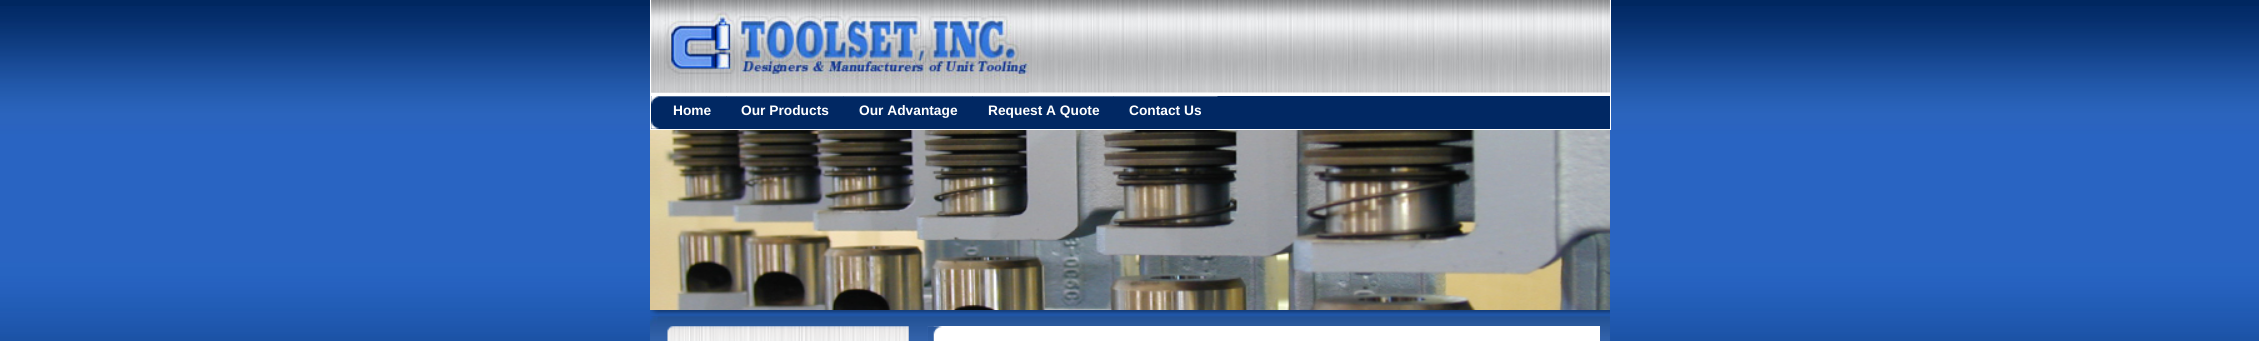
import math
import cairo

surface = cairo.ImageSurface(cairo.FORMAT_RGB24, 2259, 341)
c = cairo.Context(surface)
options = cairo.FontOptions()
options.set_hint_metrics(cairo.HINT_METRICS_OFF)
options.set_hint_style(cairo.HINT_STYLE_NONE)
c.set_font_options(options)
c.set_miter_limit(4)
def C(code):
 c.set_source_rgb(*(v / 255 for v in bytes.fromhex(code[-6:])))
def F(family, size, italic, bold):
 c.select_font_face(family, cairo.FONT_SLANT_ITALIC if italic else cairo.FONT_SLANT_NORMAL, cairo.FONT_WEIGHT_BOLD if bold else cairo.FONT_WEIGHT_NORMAL)
 c.set_font_size(size)
def T(x, y, s):
 c.move_to(x, y)
 c.show_text(s)
def R(x, y, w, h):
 c.rectangle(x, y, w, h)
 c.fill()
def I(path, x, y, w, h):
 c.save()
 c.set_source_surface(cairo.ImageSurface.create_from_png(path), x, y)
 c.rectangle(x, y, w, h)
 c.fill()
 c.restore()
C('002760')
c.paint()
I('1.png',0,6,2259,335)
C('ffffff')
R(651,92,959,1)
I('2.png',651,0,959,93)
I('3.png',651,0,378,93)
R(651,94,959,36)
C('012863')
R(651,96,959,33)
C('ffffff')
R(650,93,961,1)
R(1610,0,1,130)
R(650,0,1,130)
I('4.png',651,96,8,33)
I('5.png',658,96,69,2)
F('Liberation Sans',13.75,0,1)
T(673,115,'Home')
I('6.png',726,96,118,1)
T(741,115,'Our Products')
I('7.png',843,96,130,1)
T(859,115,'Our Advantage')
I('8.png',972,96,142,1)
T(988,115,'Request A Quote')
I('9.png',1113,96,105,1)
T(1129,115,'Contact Us')
I('10.png',650,130,960,180)
I('11.png',658,310,952,6)
I('13.png',650,316,960,25)
I('12.png',650,310,9,7)
I('14.png',650,316,8,10)
I('15.png',667,326,242,15)
R(928,326,672,15)
I('16.png',927,326,7,15)
I('17.png',927,326,15,15)
surface.write_to_png('o.png')
